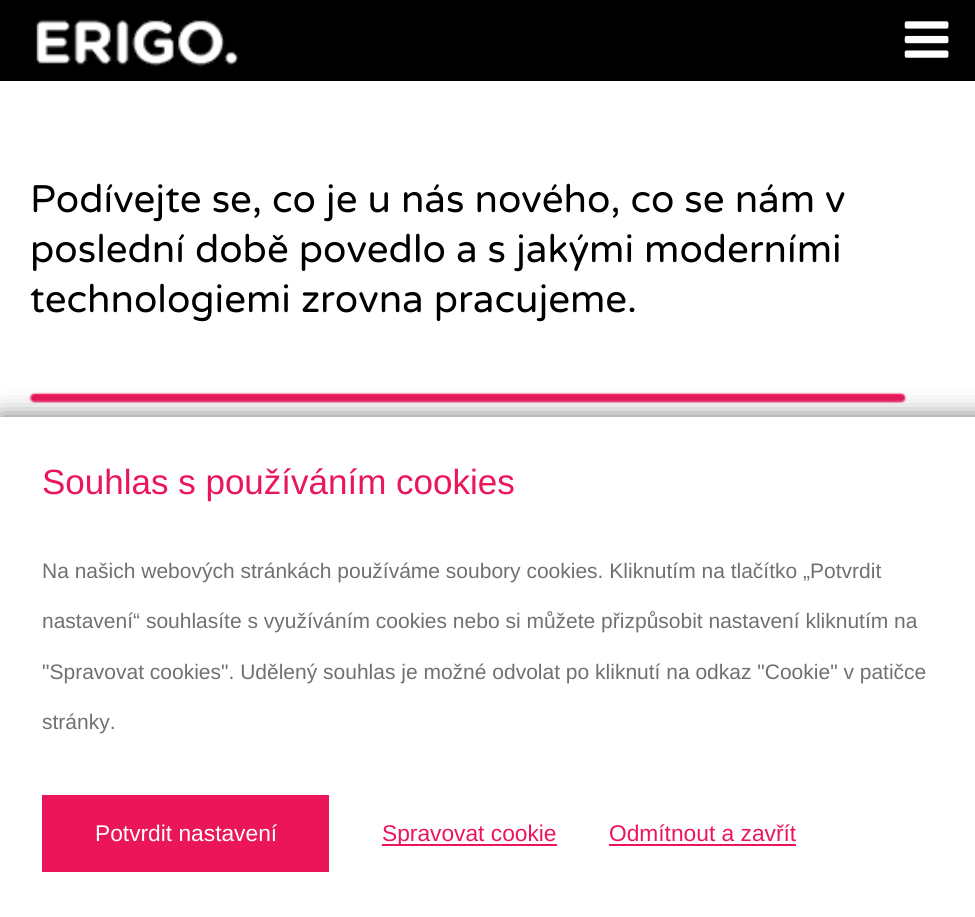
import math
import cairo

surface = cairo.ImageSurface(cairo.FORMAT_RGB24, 975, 917)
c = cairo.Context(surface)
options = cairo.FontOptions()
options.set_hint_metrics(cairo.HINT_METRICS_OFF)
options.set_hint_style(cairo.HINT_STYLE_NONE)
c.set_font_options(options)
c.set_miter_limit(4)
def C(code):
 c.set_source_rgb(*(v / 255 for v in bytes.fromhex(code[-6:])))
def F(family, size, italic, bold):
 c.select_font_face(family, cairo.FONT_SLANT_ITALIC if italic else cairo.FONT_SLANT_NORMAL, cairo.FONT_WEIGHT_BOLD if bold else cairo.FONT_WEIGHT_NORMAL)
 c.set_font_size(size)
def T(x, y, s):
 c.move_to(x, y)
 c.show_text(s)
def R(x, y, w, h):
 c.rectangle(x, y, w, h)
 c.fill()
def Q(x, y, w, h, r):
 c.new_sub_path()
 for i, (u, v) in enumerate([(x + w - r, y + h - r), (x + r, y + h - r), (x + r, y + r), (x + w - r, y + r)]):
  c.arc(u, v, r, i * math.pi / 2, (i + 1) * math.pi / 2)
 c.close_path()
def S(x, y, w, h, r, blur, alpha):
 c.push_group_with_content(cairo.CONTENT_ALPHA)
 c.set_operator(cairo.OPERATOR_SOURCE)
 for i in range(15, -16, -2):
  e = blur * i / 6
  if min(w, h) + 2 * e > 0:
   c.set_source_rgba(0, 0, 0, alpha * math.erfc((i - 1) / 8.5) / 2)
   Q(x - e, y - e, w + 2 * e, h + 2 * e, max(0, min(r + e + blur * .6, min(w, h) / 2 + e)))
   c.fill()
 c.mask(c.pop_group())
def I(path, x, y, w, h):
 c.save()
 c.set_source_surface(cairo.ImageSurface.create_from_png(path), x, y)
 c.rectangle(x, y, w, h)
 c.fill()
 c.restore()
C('ffffff')
c.paint()
C('000000')
R(0,0,975,81)
I('1.png',36,19,203,48)
I('2.png',904,21,45,37)
I('3.png',29,392,878,11)
F('Varela Round',38.5,0,0)
T(30,212,'Podívejte se, co je u nás nového, co se nám v')
T(30,262,'poslední době povedlo a s jakými moderními')
T(30,312,'technologiemi zrovna pracujeme.')
C('747474')
S(0,417,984,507,0,12,1)
C('ffffff')
R(0,417,975,500)
F('Liberation Sans',35,0,0)
C('eb1659')
T(42,494,'Souhlas s používáním cookies')
F('Liberation Sans',21,0,0)
C('707070')
T(42,578,'Na našich webových stránkách používáme soubory cookies. Kliknutím na tlačítko „Potvrdit')
T(42,628,'nastavení“ souhlasíte s využíváním cookies nebo si můžete přizpůsobit nastavení kliknutím na')
T(42,679,'"Spravovat cookies". Udělený souhlas je možné odvolat po kliknutí na odkaz "Cookie" v patičce')
T(42,729,'stránky.')
C('eb1659')
R(42,795,287,77)
F('Liberation Sans',22.75,0,0)
C('ffffff')
T(95,841,'Potvrdit nastavení')
C('eb1659')
R(382,844,175,2)
T(382,841,'Spravovat cookie')
T(609,841,'Odmítnout a zavřít')
R(609,844,187,2)
surface.write_to_png('o.png')
